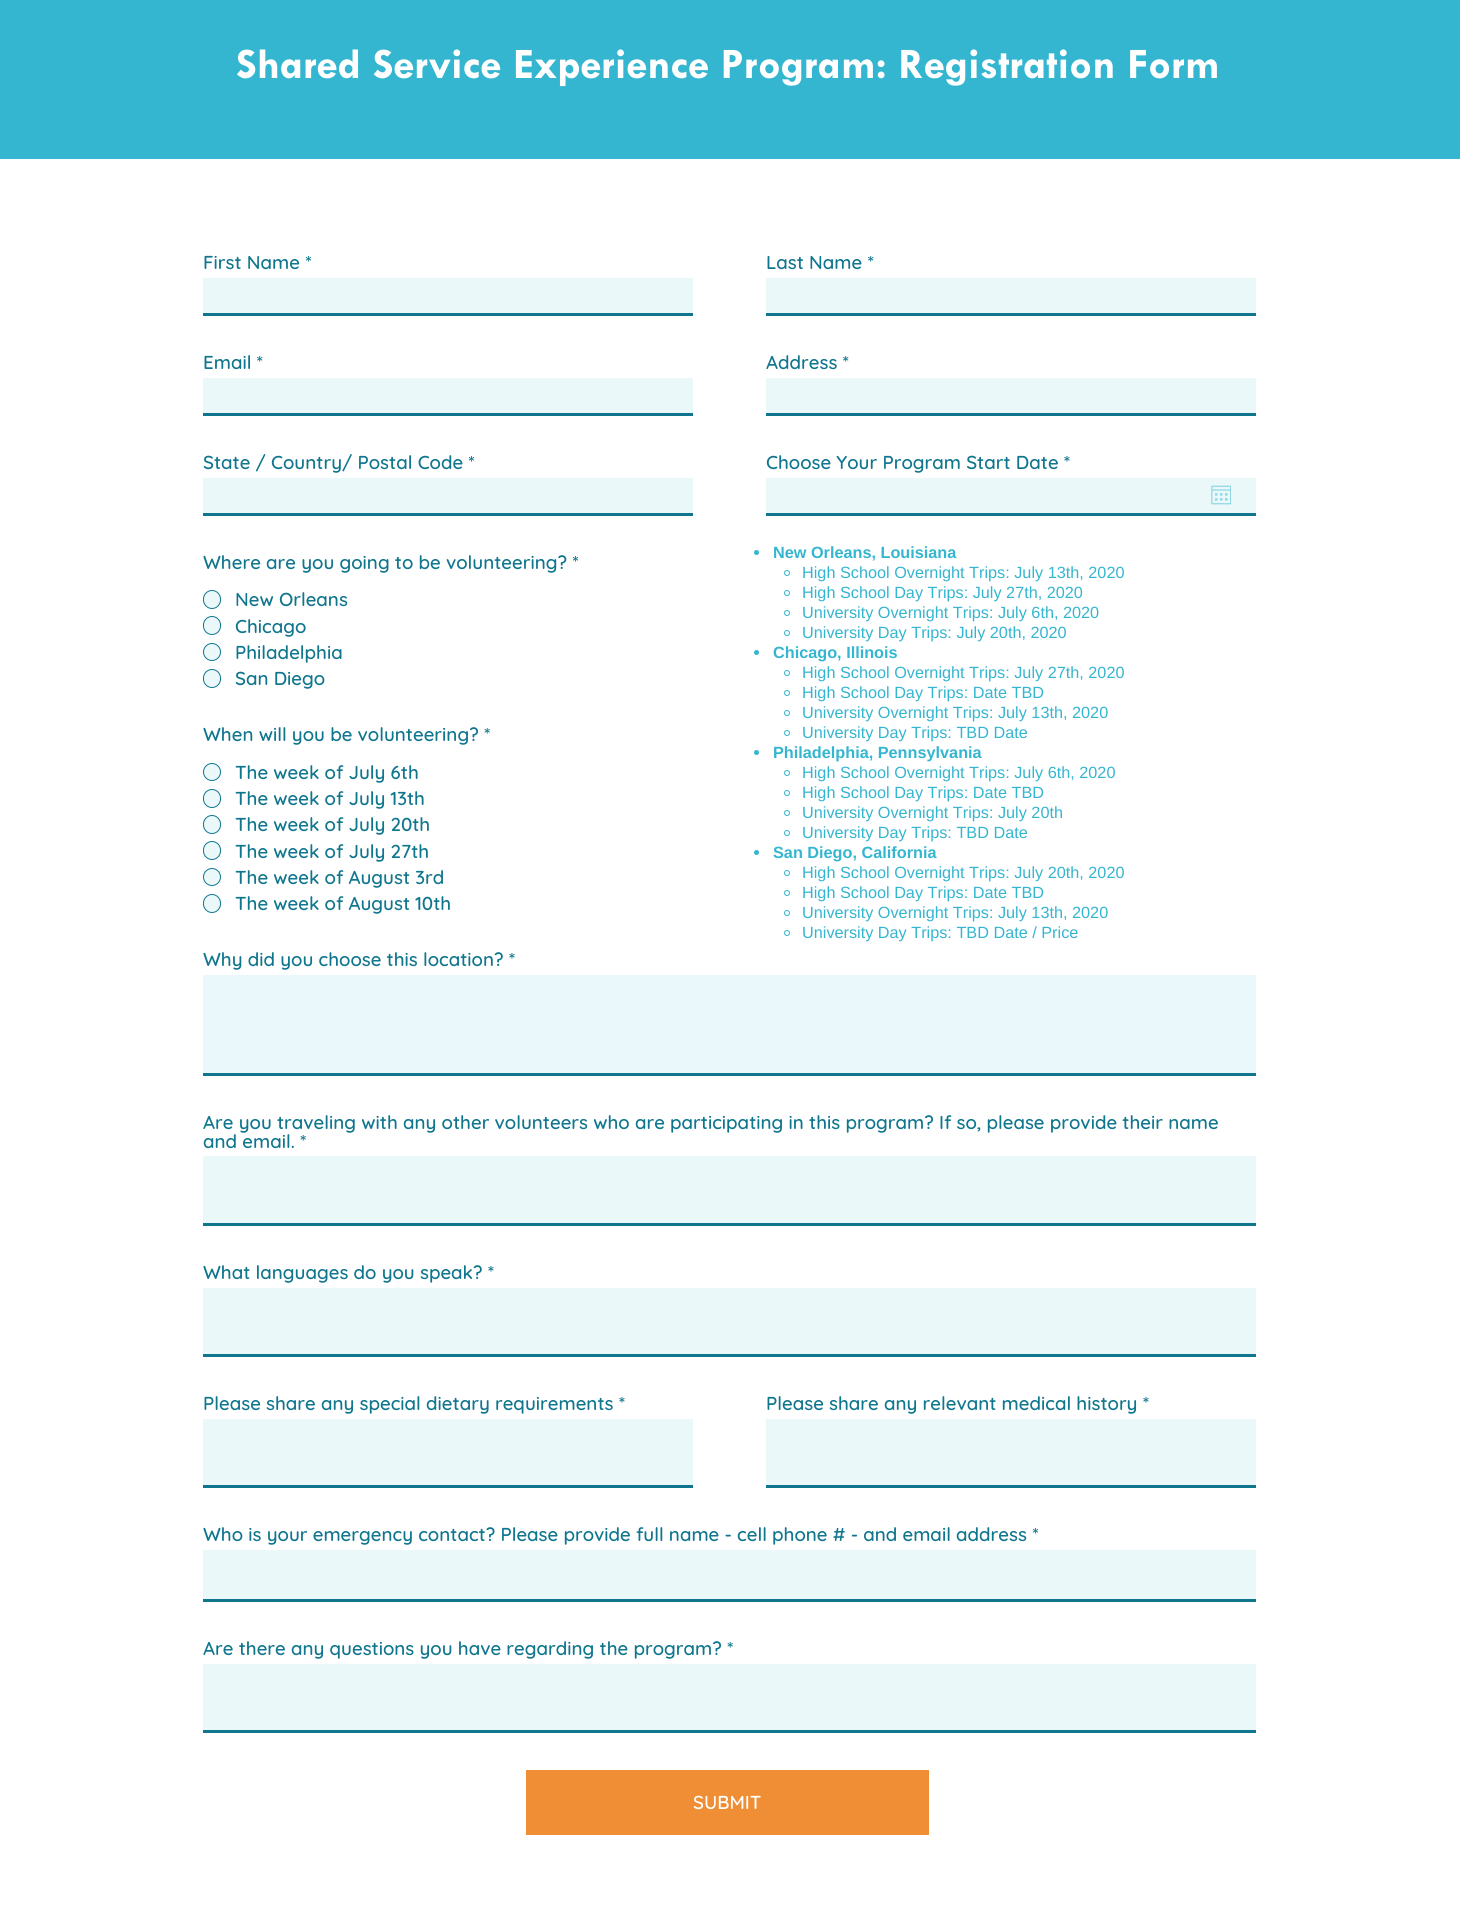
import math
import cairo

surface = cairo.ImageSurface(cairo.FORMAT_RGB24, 1460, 1911)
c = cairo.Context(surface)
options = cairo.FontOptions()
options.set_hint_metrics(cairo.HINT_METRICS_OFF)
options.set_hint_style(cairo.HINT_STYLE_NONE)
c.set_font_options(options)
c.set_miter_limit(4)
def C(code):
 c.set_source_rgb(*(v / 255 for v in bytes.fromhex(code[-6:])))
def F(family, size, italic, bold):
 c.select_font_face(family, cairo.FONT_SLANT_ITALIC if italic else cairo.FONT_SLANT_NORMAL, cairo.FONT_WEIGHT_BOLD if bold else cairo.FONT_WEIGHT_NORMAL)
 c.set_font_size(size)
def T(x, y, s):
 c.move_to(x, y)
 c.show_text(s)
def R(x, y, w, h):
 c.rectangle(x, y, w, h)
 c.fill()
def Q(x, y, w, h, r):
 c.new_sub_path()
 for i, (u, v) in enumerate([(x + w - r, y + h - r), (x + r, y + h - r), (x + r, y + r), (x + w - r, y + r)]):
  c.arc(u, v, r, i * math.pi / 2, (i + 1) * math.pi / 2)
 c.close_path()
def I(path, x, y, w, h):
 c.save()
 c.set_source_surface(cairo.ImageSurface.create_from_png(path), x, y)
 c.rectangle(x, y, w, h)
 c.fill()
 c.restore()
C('ffffff')
c.paint()
C('34b5d0')
R(0,0,1460,159)
F('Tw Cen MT',43.75,0,1)
C('ffffff')
T(236,78,'Shared Service Experience Program: Registration Form')
F('Quicksand Medium',18.75,0,0)
C('10768e')
T(203,269,'First Name *')
C('ebf8fa')
R(203,278,490,35)
C('10768e')
R(203,313,490,3)
T(766,269,'Last Name *')
C('ebf8fa')
R(766,278,490,35)
C('10768e')
R(766,313,490,3)
T(203,369,'Email *')
C('ebf8fa')
R(203,378,490,35)
C('10768e')
R(203,413,490,3)
T(766,369,'Address *')
C('ebf8fa')
R(766,378,490,35)
C('10768e')
R(766,413,490,3)
T(203,469,'State / Country/ Postal Code *')
C('ebf8fa')
R(203,478,490,35)
C('10768e')
R(203,513,490,3)
T(766,469,'Choose Your Program Start Date *')
C('ebf8fa')
R(766,478,490,35)
C('10768e')
R(766,513,490,3)
I('1.png',1211,485,20,20)
T(203,569,'Where are you going to be volunteering? *')
C('ebf8fa')
Q(203.5,590.5,17,18,8.5)
c.fill_preserve()
C('10768e')
c.set_line_width(1)
c.stroke()
T(235,606,'New Orleans')
C('ebf8fa')
Q(203.5,616.5,17,18,8.5)
c.fill_preserve()
C('10768e')
c.stroke()
T(235,633,'Chicago')
C('ebf8fa')
c.new_path()
c.arc(212,652,8.5,0,2 * math.pi)
c.fill_preserve()
C('10768e')
c.stroke()
T(235,659,'Philadelphia')
C('ebf8fa')
Q(203.5,669.5,17,18,8.5)
c.fill_preserve()
C('10768e')
c.stroke()
T(235,685,'San Diego')
C('34b5d0')
c.new_path()
c.arc(756.5,552.5,2.5,0,2 * math.pi)
c.fill()
F('Liberation Sans',16.25,0,1)
T(773,558,'New Orleans, Louisiana')
c.new_path()
c.arc(787,573,2.5,0,2 * math.pi)
c.stroke()
F('Liberation Sans',16.25,0,0)
T(802,578,'High School Overnight Trips: July 13th, 2020')
c.new_path()
c.arc(787,593,2.5,0,2 * math.pi)
c.stroke()
T(802,598,'High School Day Trips: July 27th, 2020')
c.new_path()
c.arc(787,613,2.5,0,2 * math.pi)
c.stroke()
T(802,618,'University Overnight Trips: July 6th, 2020')
c.new_path()
c.arc(787,633,2.5,0,2 * math.pi)
c.stroke()
T(802,638,'University Day Trips: July 20th, 2020')
c.new_path()
c.arc(756.5,652.5,2.5,0,2 * math.pi)
c.fill()
F('Liberation Sans',16.25,0,1)
T(773,658,'Chicago, Illinois')
c.new_path()
c.arc(787,673,2.5,0,2 * math.pi)
c.stroke()
F('Liberation Sans',16.25,0,0)
T(802,678,'High School Overnight Trips: July 27th, 2020')
c.new_path()
c.arc(787,693,2.5,0,2 * math.pi)
c.stroke()
T(802,698,'High School Day Trips: Date TBD')
c.new_path()
c.arc(787,713,2.5,0,2 * math.pi)
c.stroke()
T(802,718,'University Overnight Trips: July 13th, 2020')
c.new_path()
c.arc(787,733,2.5,0,2 * math.pi)
c.stroke()
T(802,738,'University Day Trips: TBD Date')
c.new_path()
c.arc(756.5,752.5,2.5,0,2 * math.pi)
c.fill()
F('Liberation Sans',16.25,0,1)
T(773,758,'Philadelphia, Pennsylvania')
c.new_path()
c.arc(787,773,2.5,0,2 * math.pi)
c.stroke()
F('Liberation Sans',16.25,0,0)
T(802,778,'High School Overnight Trips: July 6th, 2020')
c.new_path()
c.arc(787,793,2.5,0,2 * math.pi)
c.stroke()
T(802,798,'High School Day Trips: Date TBD')
c.new_path()
c.arc(787,813,2.5,0,2 * math.pi)
c.stroke()
T(802,818,'University Overnight Trips: July 20th')
c.new_path()
c.arc(787,833,2.5,0,2 * math.pi)
c.stroke()
T(802,838,'University Day Trips: TBD Date')
c.new_path()
c.arc(756.5,852.5,2.5,0,2 * math.pi)
c.fill()
F('Liberation Sans',16.25,0,1)
T(773,858,'San Diego, California')
c.new_path()
c.arc(787,873,2.5,0,2 * math.pi)
c.stroke()
F('Liberation Sans',16.25,0,0)
T(802,878,'High School Overnight Trips: July 20th, 2020')
c.new_path()
c.arc(787,893,2.5,0,2 * math.pi)
c.stroke()
T(802,898,'High School Day Trips: Date TBD')
c.new_path()
c.arc(787,913,2.5,0,2 * math.pi)
c.stroke()
T(802,918,'University Overnight Trips: July 13th, 2020')
c.new_path()
c.arc(787,933,2.5,0,2 * math.pi)
c.stroke()
T(802,938,'University Day Trips: TBD Date / Price')
F('Quicksand Medium',18.75,0,0)
C('10768e')
T(203,741,'When will you be volunteering? *')
C('ebf8fa')
c.new_path()
c.arc(212,772,8.5,0,2 * math.pi)
c.fill_preserve()
C('10768e')
c.stroke()
T(235,779,'The week of July 6th')
C('ebf8fa')
Q(203.5,789.5,17,18,8.5)
c.fill_preserve()
C('10768e')
c.stroke()
T(235,805,'The week of July 13th')
C('ebf8fa')
Q(203.5,815.5,17,18,8.5)
c.fill_preserve()
C('10768e')
c.stroke()
T(235,831,'The week of July 20th')
C('ebf8fa')
Q(203.5,841.5,17,18,8.5)
c.fill_preserve()
C('10768e')
c.stroke()
T(235,858,'The week of July 27th')
C('ebf8fa')
c.new_path()
c.arc(212,877,8.5,0,2 * math.pi)
c.fill_preserve()
C('10768e')
c.stroke()
T(235,884,'The week of August 3rd')
C('ebf8fa')
Q(203.5,894.5,17,18,8.5)
c.fill_preserve()
C('10768e')
c.stroke()
T(235,910,'The week of August 10th')
T(203,966,'Why did you choose this location? *')
C('ebf8fb')
R(203,975,1053,98)
C('10768e')
R(203,1073,1053,3)
T(203,1129,'Are you traveling with any other volunteers who are participating in this program? If so, please provide their name')
T(203,1148,'and email. *')
C('ebf8fa')
R(203,1156,1053,67)
C('10768e')
R(203,1223,1053,3)
T(203,1279,'What languages do you speak? *')
C('ebf8fa')
R(203,1288,1053,66)
C('10768e')
R(203,1354,1053,3)
T(203,1410,'Please share any special dietary requirements *')
C('ebf8fa')
R(203,1419,490,66)
C('10768e')
R(203,1485,490,3)
T(766,1410,'Please share any relevant medical history *')
C('ebf8fa')
R(766,1419,490,66)
C('10768e')
R(766,1485,490,3)
T(203,1541,'Who is your emergency contact? Please provide full name - cell phone # - and email address *')
C('ebf8fa')
R(203,1550,1053,49)
C('10768e')
R(203,1599,1053,3)
T(203,1655,'Are there any questions you have regarding the program? *')
C('ebf8fa')
R(203,1664,1053,66)
C('10768e')
R(203,1730,1053,3)
C('ef8e35')
R(526,1770,403,65)
C('ffffff')
T(693,1809,'SUBMIT')
surface.write_to_png('o.png')
